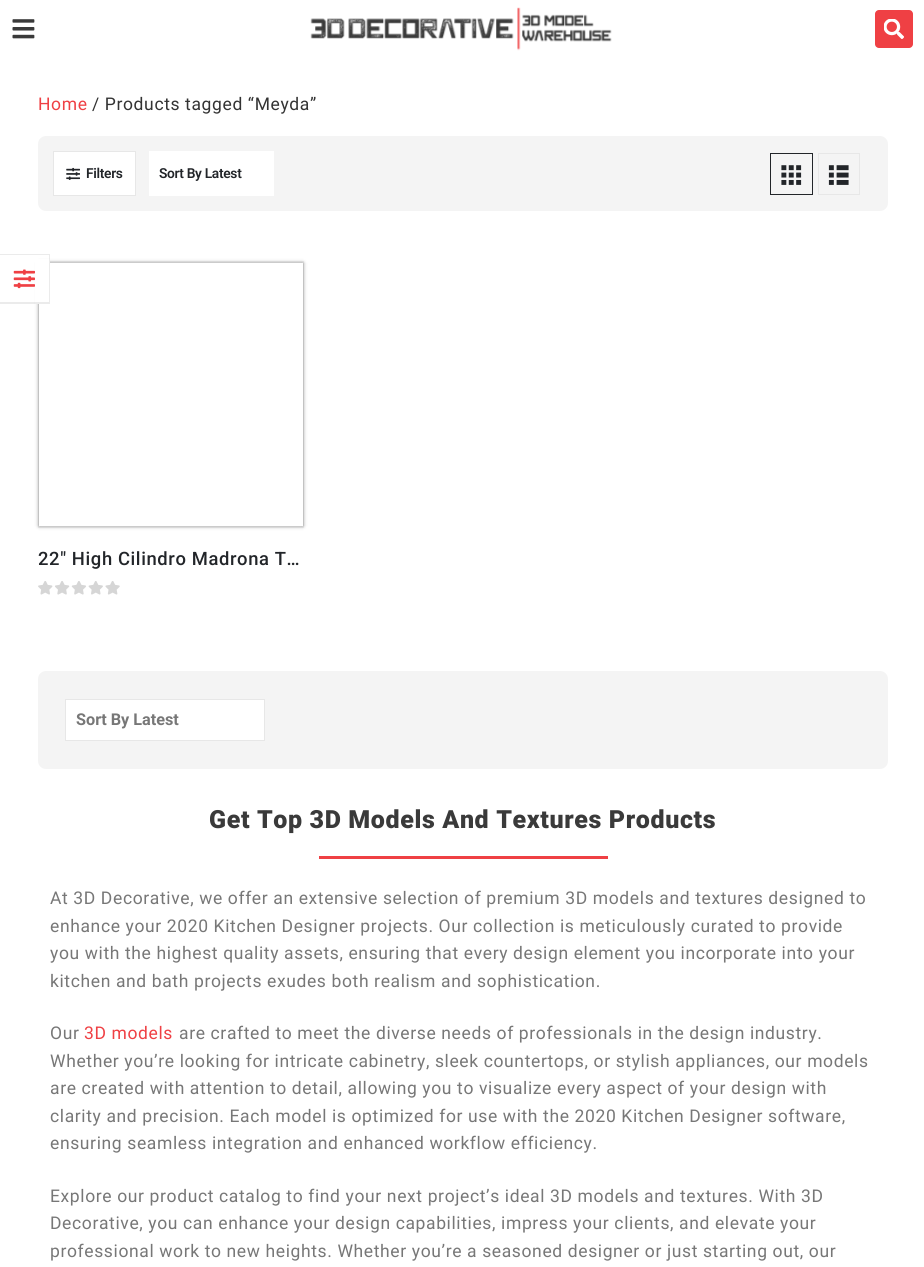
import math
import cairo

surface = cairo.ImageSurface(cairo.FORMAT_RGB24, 924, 1267)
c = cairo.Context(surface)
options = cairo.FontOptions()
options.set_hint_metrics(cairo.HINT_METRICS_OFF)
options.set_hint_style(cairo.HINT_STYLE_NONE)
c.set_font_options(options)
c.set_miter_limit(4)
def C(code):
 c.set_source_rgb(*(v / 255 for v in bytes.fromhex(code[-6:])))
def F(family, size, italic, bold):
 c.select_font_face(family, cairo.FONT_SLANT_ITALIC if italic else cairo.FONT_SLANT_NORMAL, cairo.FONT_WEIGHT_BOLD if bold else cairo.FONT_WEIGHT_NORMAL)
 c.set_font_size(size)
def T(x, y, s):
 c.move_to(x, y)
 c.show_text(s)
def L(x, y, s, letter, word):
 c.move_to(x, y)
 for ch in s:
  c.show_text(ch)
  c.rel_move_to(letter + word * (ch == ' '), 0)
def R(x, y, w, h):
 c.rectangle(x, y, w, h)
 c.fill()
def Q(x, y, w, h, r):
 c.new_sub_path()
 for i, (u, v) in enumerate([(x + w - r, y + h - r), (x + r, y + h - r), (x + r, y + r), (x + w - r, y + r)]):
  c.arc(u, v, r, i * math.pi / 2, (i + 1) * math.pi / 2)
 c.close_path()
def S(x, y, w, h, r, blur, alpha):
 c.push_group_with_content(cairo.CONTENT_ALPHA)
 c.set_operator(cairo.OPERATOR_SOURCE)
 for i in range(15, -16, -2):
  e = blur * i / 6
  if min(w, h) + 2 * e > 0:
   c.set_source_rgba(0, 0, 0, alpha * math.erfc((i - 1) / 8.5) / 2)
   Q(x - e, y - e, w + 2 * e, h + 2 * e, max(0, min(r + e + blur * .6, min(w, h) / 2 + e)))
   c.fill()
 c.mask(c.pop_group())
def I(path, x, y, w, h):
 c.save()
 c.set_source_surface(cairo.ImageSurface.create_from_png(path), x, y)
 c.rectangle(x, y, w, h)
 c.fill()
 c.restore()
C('ffffff')
c.paint()
I('1.png',12,19,23,20)
I('2.png',310,7,302,44)
C('ef4044')
Q(875,10,38,38,4)
c.fill()
I('3.png',884,19,20,20)
c.rectangle(38.5,261.5,265,266)
C('f4f4f4')
c.set_line_width(1)
c.stroke()
c.save()
c.set_fill_rule(cairo.FILL_RULE_EVEN_ODD)
c.new_path()
c.move_to(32,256)
c.line_to(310,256)
c.line_to(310,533)
c.line_to(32,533)
c.close_path()
c.move_to(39,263)
c.line_to(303,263)
c.line_to(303,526)
c.line_to(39,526)
c.close_path()
c.clip()
C('000000')
S(39,263,264,263,0,2,.5)
c.restore()
C('ffffff')
R(35,259,15,45)
C('ebebeb')
c.new_path()
c.move_to(0,254)
c.line_to(50,254)
c.line_to(49,255)
c.line_to(0,255)
c.close_path()
c.fill()
c.set_source_rgba(0,0,0,0.08)
c.new_path()
c.move_to(50,254)
c.line_to(50,304)
c.line_to(49,302)
c.line_to(49,255)
c.close_path()
c.fill()
c.new_path()
c.move_to(50,304)
c.line_to(0,304)
c.line_to(0,302)
c.line_to(49,302)
c.close_path()
c.fill()
I('4.png',13,269,22,20)
F('Roboto',17.5,0,0)
C('ef4044')
L(38,110,'Home',.62,0)
C('333333')
L(92,110,'/ Products tagged “Meyda”',.62,0)
C('f4f4f4')
Q(38,136,850,75,8)
c.fill()
C('ffffff')
c.rectangle(53.5,151.5,82,44)
c.fill_preserve()
C('e7e7e7')
c.stroke()
I('5.png',66,167,14,13)
F('Roboto SemiBold',13.75,0,0)
C('222529')
L(86,178,'Filters',-.3,0)
C('ffffff')
R(149,151,125,45)
C('222529')
L(159,178,'Sort By Latest',-.3,0)
c.rectangle(770.5,153.5,42,41)
c.stroke()
I('6.png',781,165,21,20)
c.rectangle(818.5,153.5,41,41)
C('e7e7e7')
c.stroke()
I('7.png',828,165,21,20)
F('Roboto Medium',18.4,0,0)
C('222529')
L(38,565,'22″ High Cilindro Madrona T…',.62,0)
I('8.png',38,581,82,14)
C('f4f4f4')
Q(38,671,850,98,8)
c.fill()
C('ffffff')
c.rectangle(65.5,699.5,199,41)
c.fill_preserve()
C('e7e7e7')
c.stroke()
F('Roboto',16.25,0,1)
C('777777')
T(76,725,'Sort By Latest')
F('Roboto Black',25,0,0)
C('3a3a3a')
L(209,828,'Get Top 3D Models And Textures Products',.62,0)
C('ef4044')
R(319,856,289,3)
F('Roboto',17.5,0,0)
C('777777')
L(50,904,'At 3D Decorative, we offer an extensive selection of premium 3D models and textures designed to',.62,0)
L(50,932,'enhance your 2020 Kitchen Designer projects. Our collection is meticulously curated to provide',.62,0)
L(50,959,'you with the highest quality assets, ensuring that every design element you incorporate into your',.62,0)
L(50,987,'kitchen and bath projects exudes both realism and sophistication.',.62,0)
L(50,1039,'Our',.62,0)
C('ef4044')
L(84,1039,'3D models',.62,0)
C('777777')
L(179,1039,'are crafted to meet the diverse needs of professionals in the design industry.',.62,0)
L(50,1067,'Whether you’re looking for intricate cabinetry, sleek countertops, or stylish appliances, our models',.62,0)
L(50,1094,'are created with attention to detail, allowing you to visualize every aspect of your design with',.62,0)
L(50,1122,'clarity and precision. Each model is optimized for use with the 2020 Kitchen Designer software,',.62,0)
L(50,1149,'ensuring seamless integration and enhanced workflow efficiency.',.62,0)
L(50,1202,'Explore our product catalog to find your next project’s ideal 3D models and textures. With 3D',.62,0)
L(50,1229,'Decorative, you can enhance your design capabilities, impress your clients, and elevate your',.62,0)
L(50,1257,'professional work to new heights. Whether you’re a seasoned designer or just starting out, our',.62,0)
surface.write_to_png('o.png')
